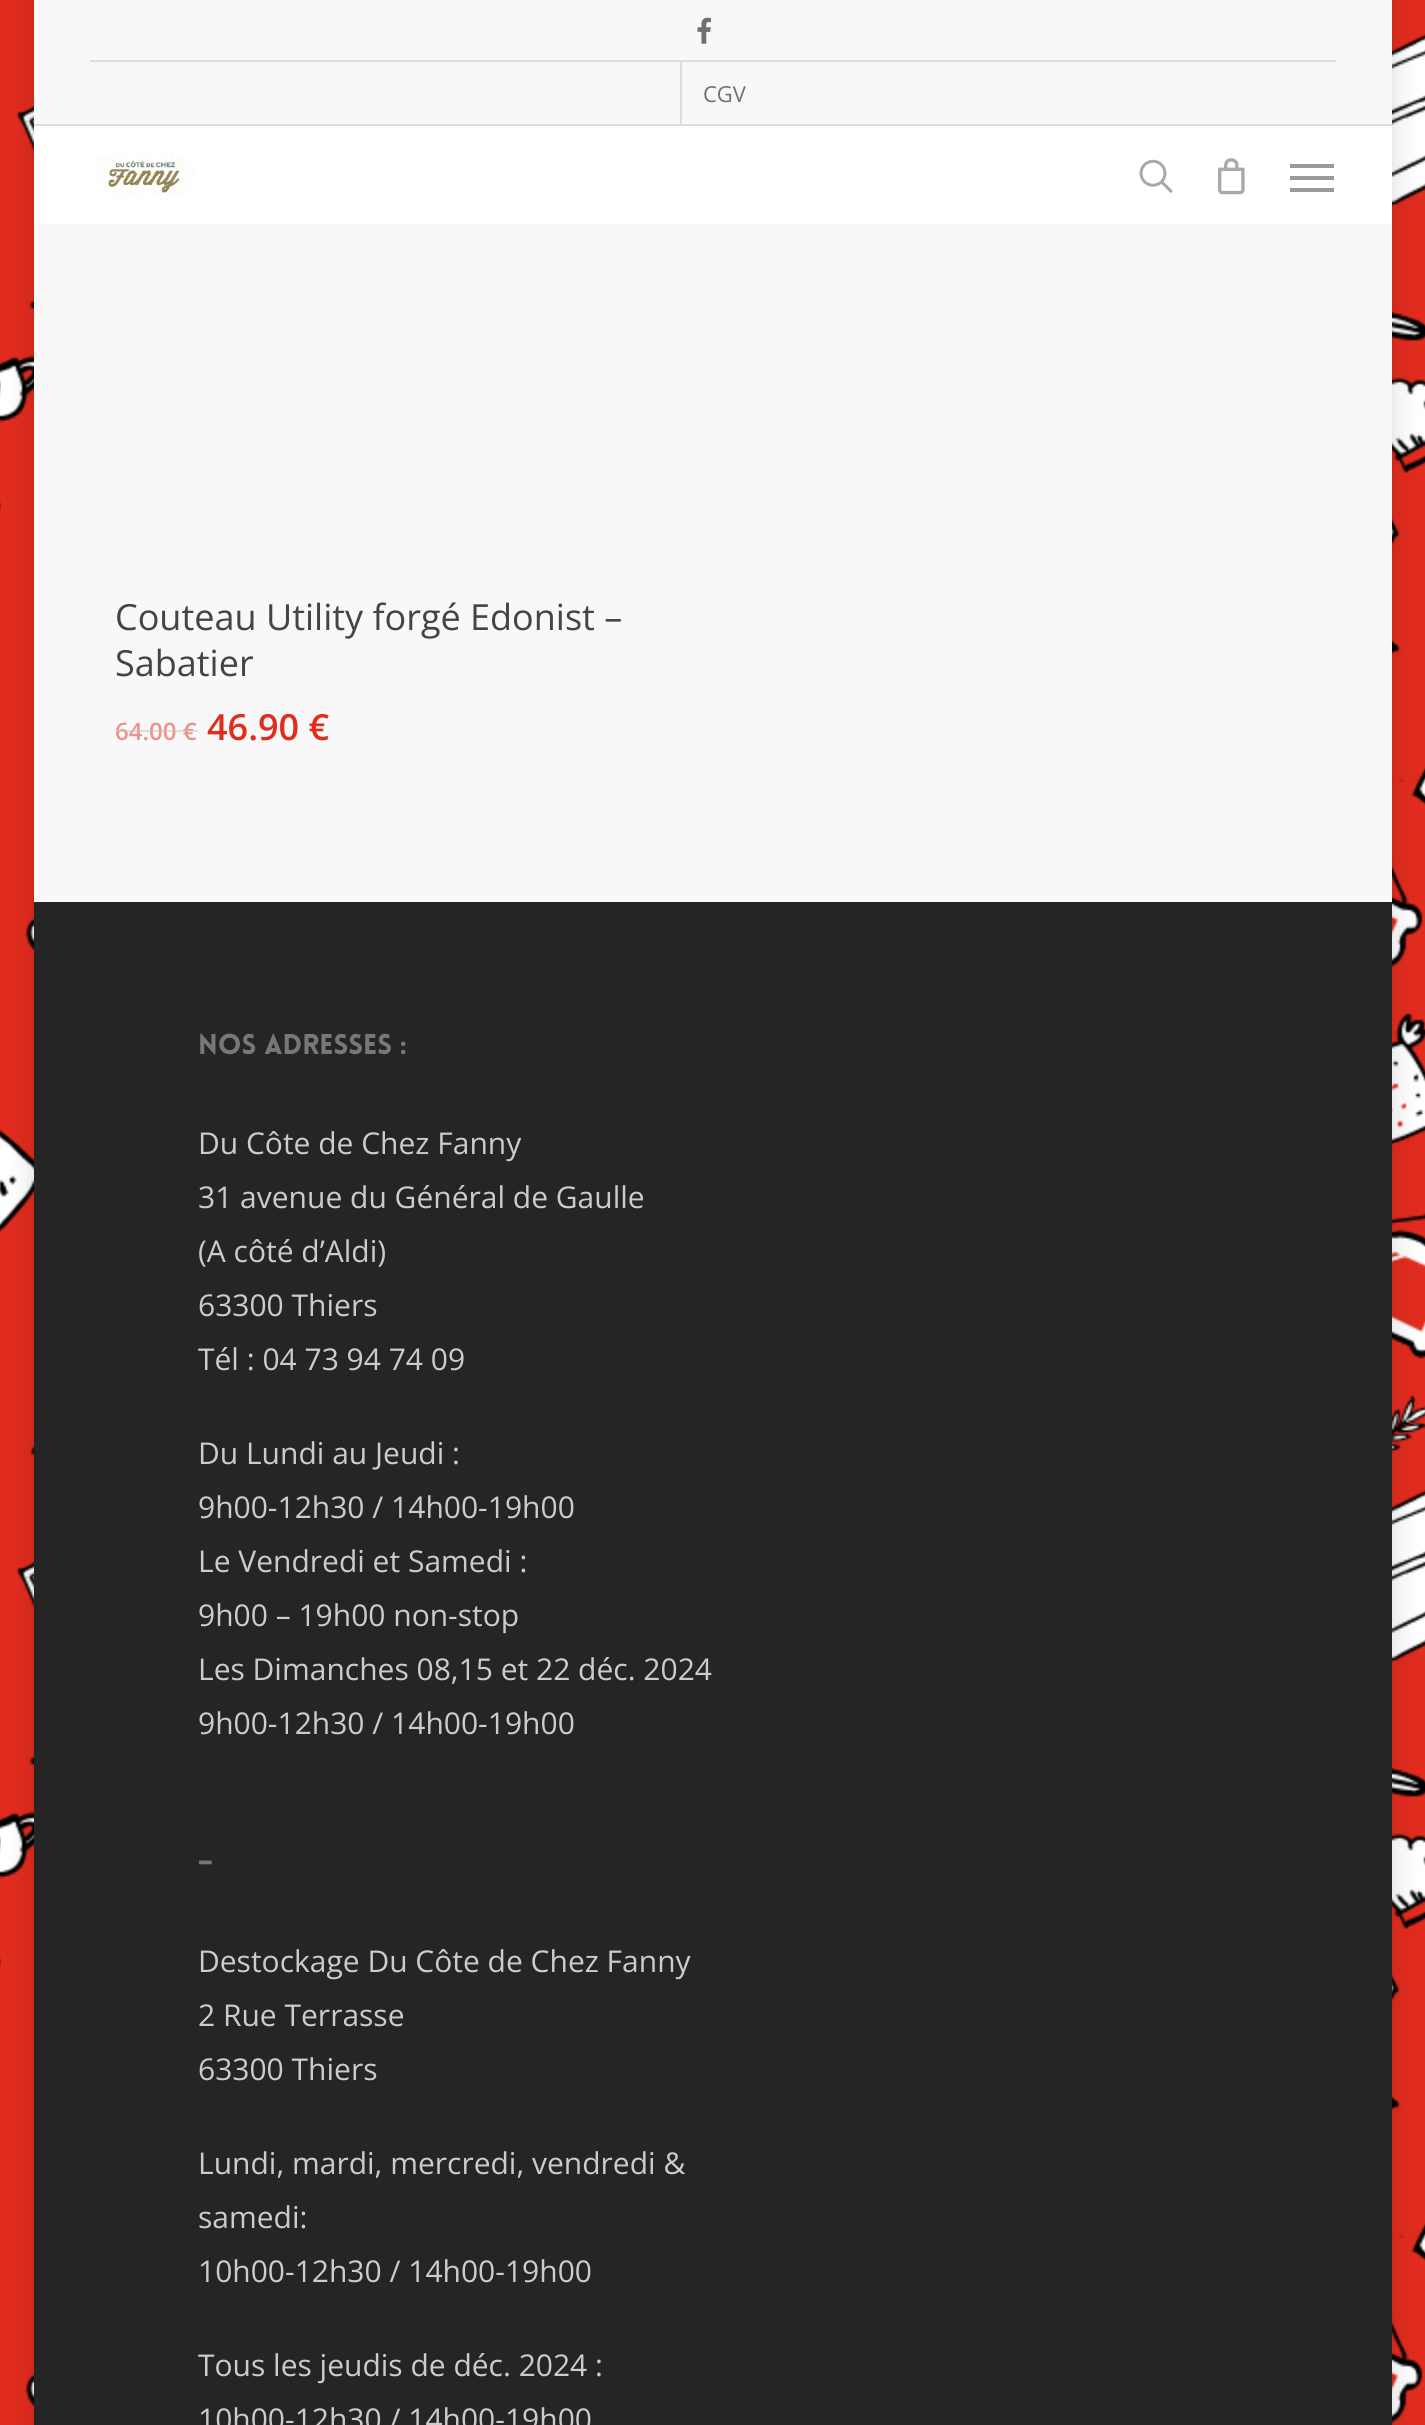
import math
import cairo

surface = cairo.ImageSurface(cairo.FORMAT_RGB24, 1425, 2425)
c = cairo.Context(surface)
options = cairo.FontOptions()
options.set_hint_metrics(cairo.HINT_METRICS_OFF)
options.set_hint_style(cairo.HINT_STYLE_NONE)
c.set_font_options(options)
c.set_miter_limit(4)
def C(code):
 c.set_source_rgb(*(v / 255 for v in bytes.fromhex(code[-6:])))
def F(family, size, italic, bold):
 c.select_font_face(family, cairo.FONT_SLANT_ITALIC if italic else cairo.FONT_SLANT_NORMAL, cairo.FONT_WEIGHT_BOLD if bold else cairo.FONT_WEIGHT_NORMAL)
 c.set_font_size(size)
def T(x, y, s):
 c.move_to(x, y)
 c.show_text(s)
def R(x, y, w, h):
 c.rectangle(x, y, w, h)
 c.fill()
def Q(x, y, w, h, r):
 c.new_sub_path()
 for i, (u, v) in enumerate([(x + w - r, y + h - r), (x + r, y + h - r), (x + r, y + r), (x + w - r, y + r)]):
  c.arc(u, v, r, i * math.pi / 2, (i + 1) * math.pi / 2)
 c.close_path()
def S(x, y, w, h, r, blur, alpha):
 c.push_group_with_content(cairo.CONTENT_ALPHA)
 c.set_operator(cairo.OPERATOR_SOURCE)
 for i in range(15, -16, -2):
  e = blur * i / 6
  if min(w, h) + 2 * e > 0:
   c.set_source_rgba(0, 0, 0, alpha * math.erfc((i - 1) / 8.5) / 2)
   Q(x - e, y - e, w + 2 * e, h + 2 * e, max(0, min(r + e + blur * .6, min(w, h) / 2 + e)))
   c.fill()
 c.mask(c.pop_group())
def I(path, x, y, w, h):
 c.save()
 c.set_source_surface(cairo.ImageSurface.create_from_png(path), x, y)
 c.rectangle(x, y, w, h)
 c.fill()
 c.restore()
C('e12c1e')
c.paint()
I('1.png',0,33,1425,2392)
C('000000')
S(34,-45,1358,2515,0,15,.15)
C('f8f8f8')
R(34,224,1358,678)
C('ffffff')
R(34,126,1358,98)
C('f8f8f8')
R(34,0,1358,124)
C('dddddd')
R(34,124,1358,2)
I('2.png',697,17,14,27)
R(90,60,1246,2)
R(680,62,2,62)
F('Open Sans',22,0,0)
C('707070')
T(703,102,'CGV')
I('3.png',92,153,102,46)
I('4.png',1139,159,34,34)
I('5.png',1218,158,27,37)
C('999999')
R(1290,164,44,4)
R(1290,188,44,4)
R(1290,176,44,4)
F('Open Sans',36,0,0)
C('444444')
T(115,630,'Couteau Utility forgé Edonist –')
T(115,676,'Sabatier')
F('Open Sans SemiBold',24,0,0)
C('ed928b')
T(115,740,'64.00 €')
c.set_source_rgba(0.773,0.773,0.773,0.5)
R(116,730,68,2)
R(184,730,14,2)
F('Open Sans SemiBold',36,0,0)
C('e12c1e')
T(207,740,'46.90 €')
C('252525')
R(34,902,1358,1523)
F('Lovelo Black',28,0,0)
C('777777')
T(198,1054,'Nos adresses :')
F('Open Sans',30,0,0)
C('cccccc')
T(198,1154,'Du Côte de Chez Fanny')
T(198,1208,'31 avenue du Général de Gaulle')
T(198,1262,'(A côté d’Aldi)')
T(198,1316,'63300 Thiers')
T(198,1370,'Tél : 04 73 94 74 09')
T(198,1464,'Du Lundi au Jeudi :')
T(198,1518,'9h00-12h30 / 14h00-19h00')
T(198,1572,'Le Vendredi et Samedi :')
T(198,1626,'9h00 – 19h00 non-stop')
T(198,1680,'Les Dimanches 08,15 et 22 déc. 2024')
T(198,1734,'9h00-12h30 / 14h00-19h00')
F('Lovelo Black',28,0,0)
C('777777')
T(198,1872,'–')
F('Open Sans',30,0,0)
C('cccccc')
T(198,1972,'Destockage Du Côte de Chez Fanny')
T(198,2026,'2 Rue Terrasse')
T(198,2080,'63300 Thiers')
T(198,2174,'Lundi, mardi, mercredi, vendredi &')
T(198,2228,'samedi:')
T(198,2282,'10h00-12h30 / 14h00-19h00')
T(198,2376,'Tous les jeudis de déc. 2024 :')
T(198,2430,'10h00-12h30 / 14h00-19h00')
surface.write_to_png('o.png')
